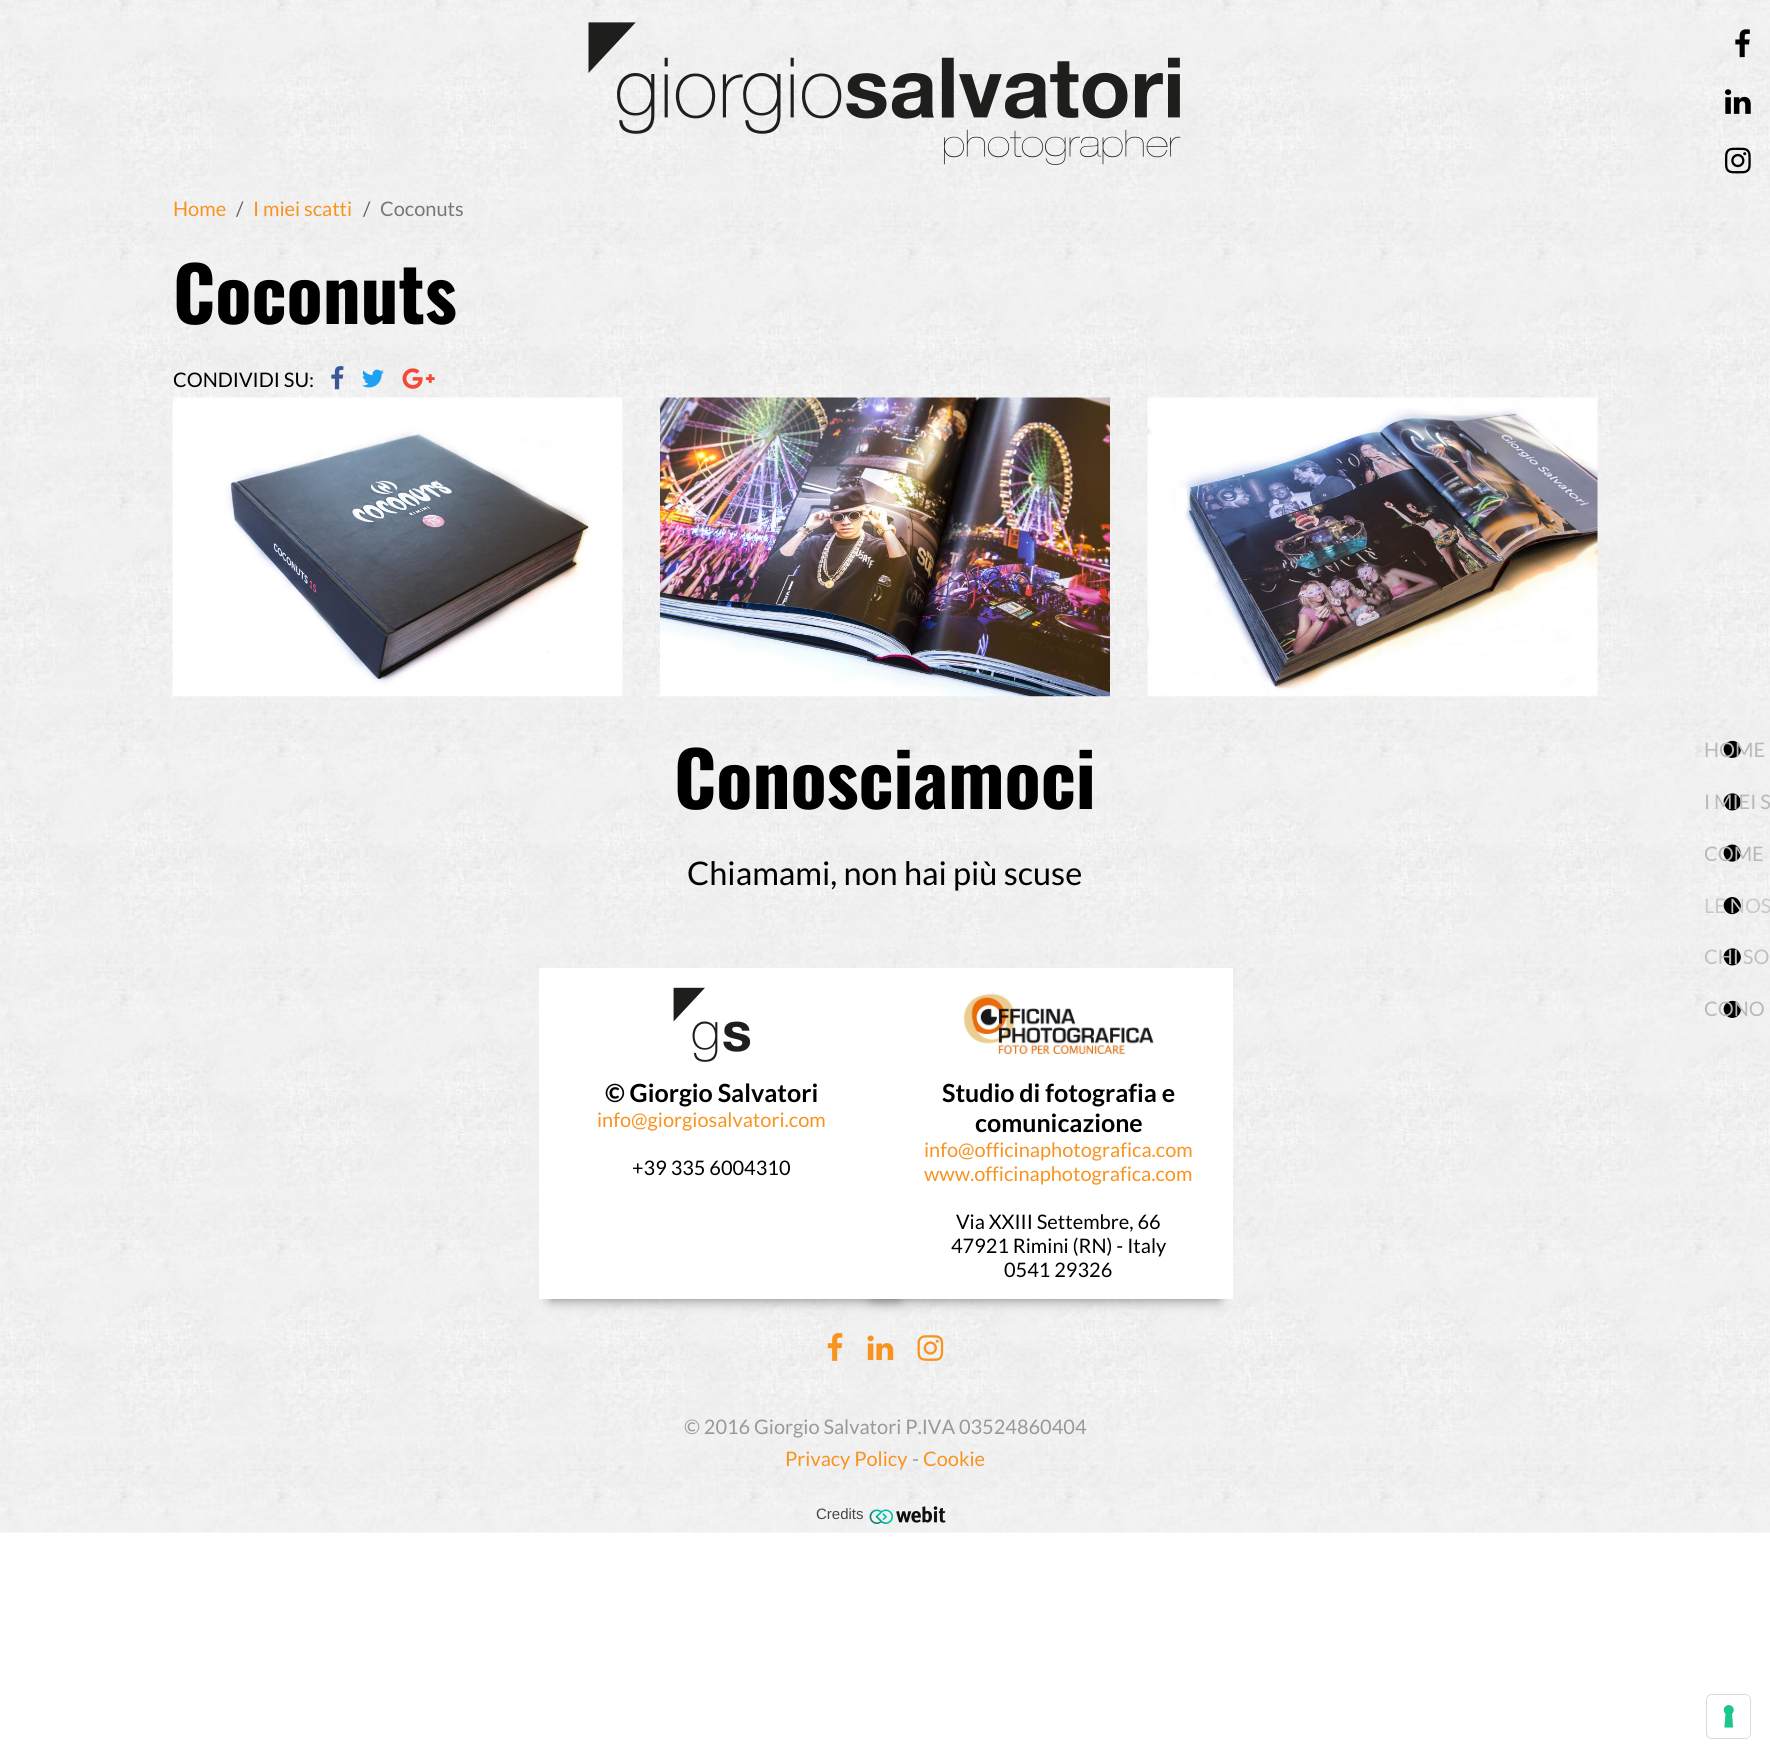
import math
import cairo

surface = cairo.ImageSurface(cairo.FORMAT_RGB24, 1770, 1757)
c = cairo.Context(surface)
options = cairo.FontOptions()
options.set_hint_metrics(cairo.HINT_METRICS_OFF)
options.set_hint_style(cairo.HINT_STYLE_NONE)
c.set_font_options(options)
c.set_miter_limit(4)
def C(code):
 c.set_source_rgb(*(v / 255 for v in bytes.fromhex(code[-6:])))
def F(family, size, italic, bold):
 c.select_font_face(family, cairo.FONT_SLANT_ITALIC if italic else cairo.FONT_SLANT_NORMAL, cairo.FONT_WEIGHT_BOLD if bold else cairo.FONT_WEIGHT_NORMAL)
 c.set_font_size(size)
def T(x, y, s):
 c.move_to(x, y)
 c.show_text(s)
def R(x, y, w, h):
 c.rectangle(x, y, w, h)
 c.fill()
def Q(x, y, w, h, r):
 c.new_sub_path()
 for i, (u, v) in enumerate([(x + w - r, y + h - r), (x + r, y + h - r), (x + r, y + r), (x + w - r, y + r)]):
  c.arc(u, v, r, i * math.pi / 2, (i + 1) * math.pi / 2)
 c.close_path()
def S(x, y, w, h, r, blur, alpha):
 c.push_group_with_content(cairo.CONTENT_ALPHA)
 c.set_operator(cairo.OPERATOR_SOURCE)
 for i in range(15, -16, -2):
  e = blur * i / 6
  if min(w, h) + 2 * e > 0:
   c.set_source_rgba(0, 0, 0, alpha * math.erfc((i - 1) / 8.5) / 2)
   Q(x - e, y - e, w + 2 * e, h + 2 * e, max(0, min(r + e + blur * .6, min(w, h) / 2 + e)))
   c.fill()
 c.mask(c.pop_group())
def I(path, x, y, w, h):
 c.save()
 c.set_source_surface(cairo.ImageSurface.create_from_png(path), x, y)
 c.rectangle(x, y, w, h)
 c.fill()
 c.restore()
C('ffffff')
c.paint()
I('1.png',0,0,1770,1533)
F('Lato',20,0,0)
C('f8931f')
T(173,216,'Home')
C('666666')
T(236,216,'/')
C('f8931f')
T(253,216,'I miei scatti')
C('666666')
T(363,216,'/')
C('777777')
T(380,216,'Coconuts')
F('Oswald',75,0,1)
C('000000')
T(173,324,'Coconuts')
F('Lato',20,0,0)
T(173,387,'CONDIVIDI SU:')
I('2.png',331,366,13,24)
I('3.png',362,369,22,19)
I('4.png',402,368,33,21)
I('5.png',172,397,451,300)
I('6.png',660,397,450,300)
I('7.png',1147,397,451,300)
F('Oswald',75,0,1)
T(674,809,'Conosciamoci')
F('Lato',32.5,0,0)
T(687,885,'Chiamami, non hai più scuse')
C('777777')
S(551,1251,347,48,0,6.5,1)
S(873,1251,346,48,0,6.5,1)
C('ffffff')
R(539,968,694,331)
I('8.png',673,987,78,75)
F('Lato',25,0,1)
C('000000')
T(605,1102,'© Giorgio Salvatori')
F('Lato',20,0,0)
C('f8931f')
T(597,1127,'info@giorgiosalvatori.com')
C('000000')
T(632,1175,'+39 335 6004310')
I('9.png',963,993,191,62)
F('Lato',25,0,1)
T(942,1102,'Studio di fotografia e')
T(975,1132,'comunicazione')
F('Lato',20,0,0)
C('f8931f')
T(924,1157,'info@officinaphotografica.com')
T(924,1181,'www.officinaphotografica.com')
C('000000')
T(956,1229,'Via XXIII Settembre, 66')
T(951,1253,'47921 Rimini (RN) - Italy')
T(1004,1277,'0541 29326')
I('10.png',827,1333,16,28)
I('11.png',867,1335,27,26)
I('12.png',917,1335,27,26)
C('999999')
T(684,1434,'© 2016 Giorgio Salvatori P.IVA 03524860404')
C('f8931f')
T(785,1466,'Privacy Policy')
C('999999')
T(912,1466,'-')
C('f8931f')
T(923,1466,'Cookie')
F('Liberation Sans',15,0,0)
C('474747')
T(816,1519,'Credits')
I('13.png',869,1506,77,18)
I('14.png',588,22,593,143)
I('15.png',1735,29,15,29)
I('16.png',1725,89,26,25)
I('17.png',1725,147,26,27)
C('000000')
c.new_path()
c.move_to(1739.5,745)
c.curve_to(1745.5,755,1730.5,763.5,1725,753.5)
c.curve_to(1719,744,1734,735.5,1739.5,745)
c.close_path()
c.fill()
F('Lato',20,0,0)
C('b8b8b8')
T(1704,757,'HOME')
C('000000')
c.new_path()
c.move_to(1739.5,797.5)
c.curve_to(1745.5,807.5,1730.5,816,1725,806)
c.curve_to(1719,796.5,1734,788,1739.5,797.5)
c.close_path()
c.fill()
C('b8b8b8')
T(1704,809,'I MIEI S')
C('000000')
c.new_path()
c.move_to(1739.5,849)
c.curve_to(1745.5,858.5,1730.5,867,1725,857.5)
c.curve_to(1719,847.5,1734,839,1739.5,849)
c.close_path()
c.fill()
C('b8b8b8')
T(1704,861,'COME')
C('000000')
c.new_path()
c.move_to(1739.5,901.5)
c.curve_to(1745.5,911,1730.5,919.5,1725,910)
c.curve_to(1719,900,1734,891.5,1739.5,901.5)
c.close_path()
c.fill()
C('c9c9c9')
T(1704,913,'LE NOS')
C('000000')
c.new_path()
c.move_to(1739.5,952.5)
c.curve_to(1745.5,962.5,1730.5,971,1725,961)
c.curve_to(1719,951.5,1734,943,1739.5,952.5)
c.close_path()
c.fill()
C('c0c0c0')
T(1704,964,'CHI SO')
C('000000')
c.new_path()
c.move_to(1739.5,1005)
c.curve_to(1745.5,1015,1730.5,1023.5,1725,1013.5)
c.curve_to(1719,1004,1734,995.5,1739.5,1005)
c.close_path()
c.fill()
C('b8b8b8')
T(1704,1016,'CONO')
Q(1706.5,1694.5,44,44,5.5)
C('d9d9d9')
c.set_line_width(1)
c.stroke()
C('ffffff')
Q(1708,1695,42,43,5)
c.fill()
I('18.png',1723,1705,11,23)
surface.write_to_png('o.png')
